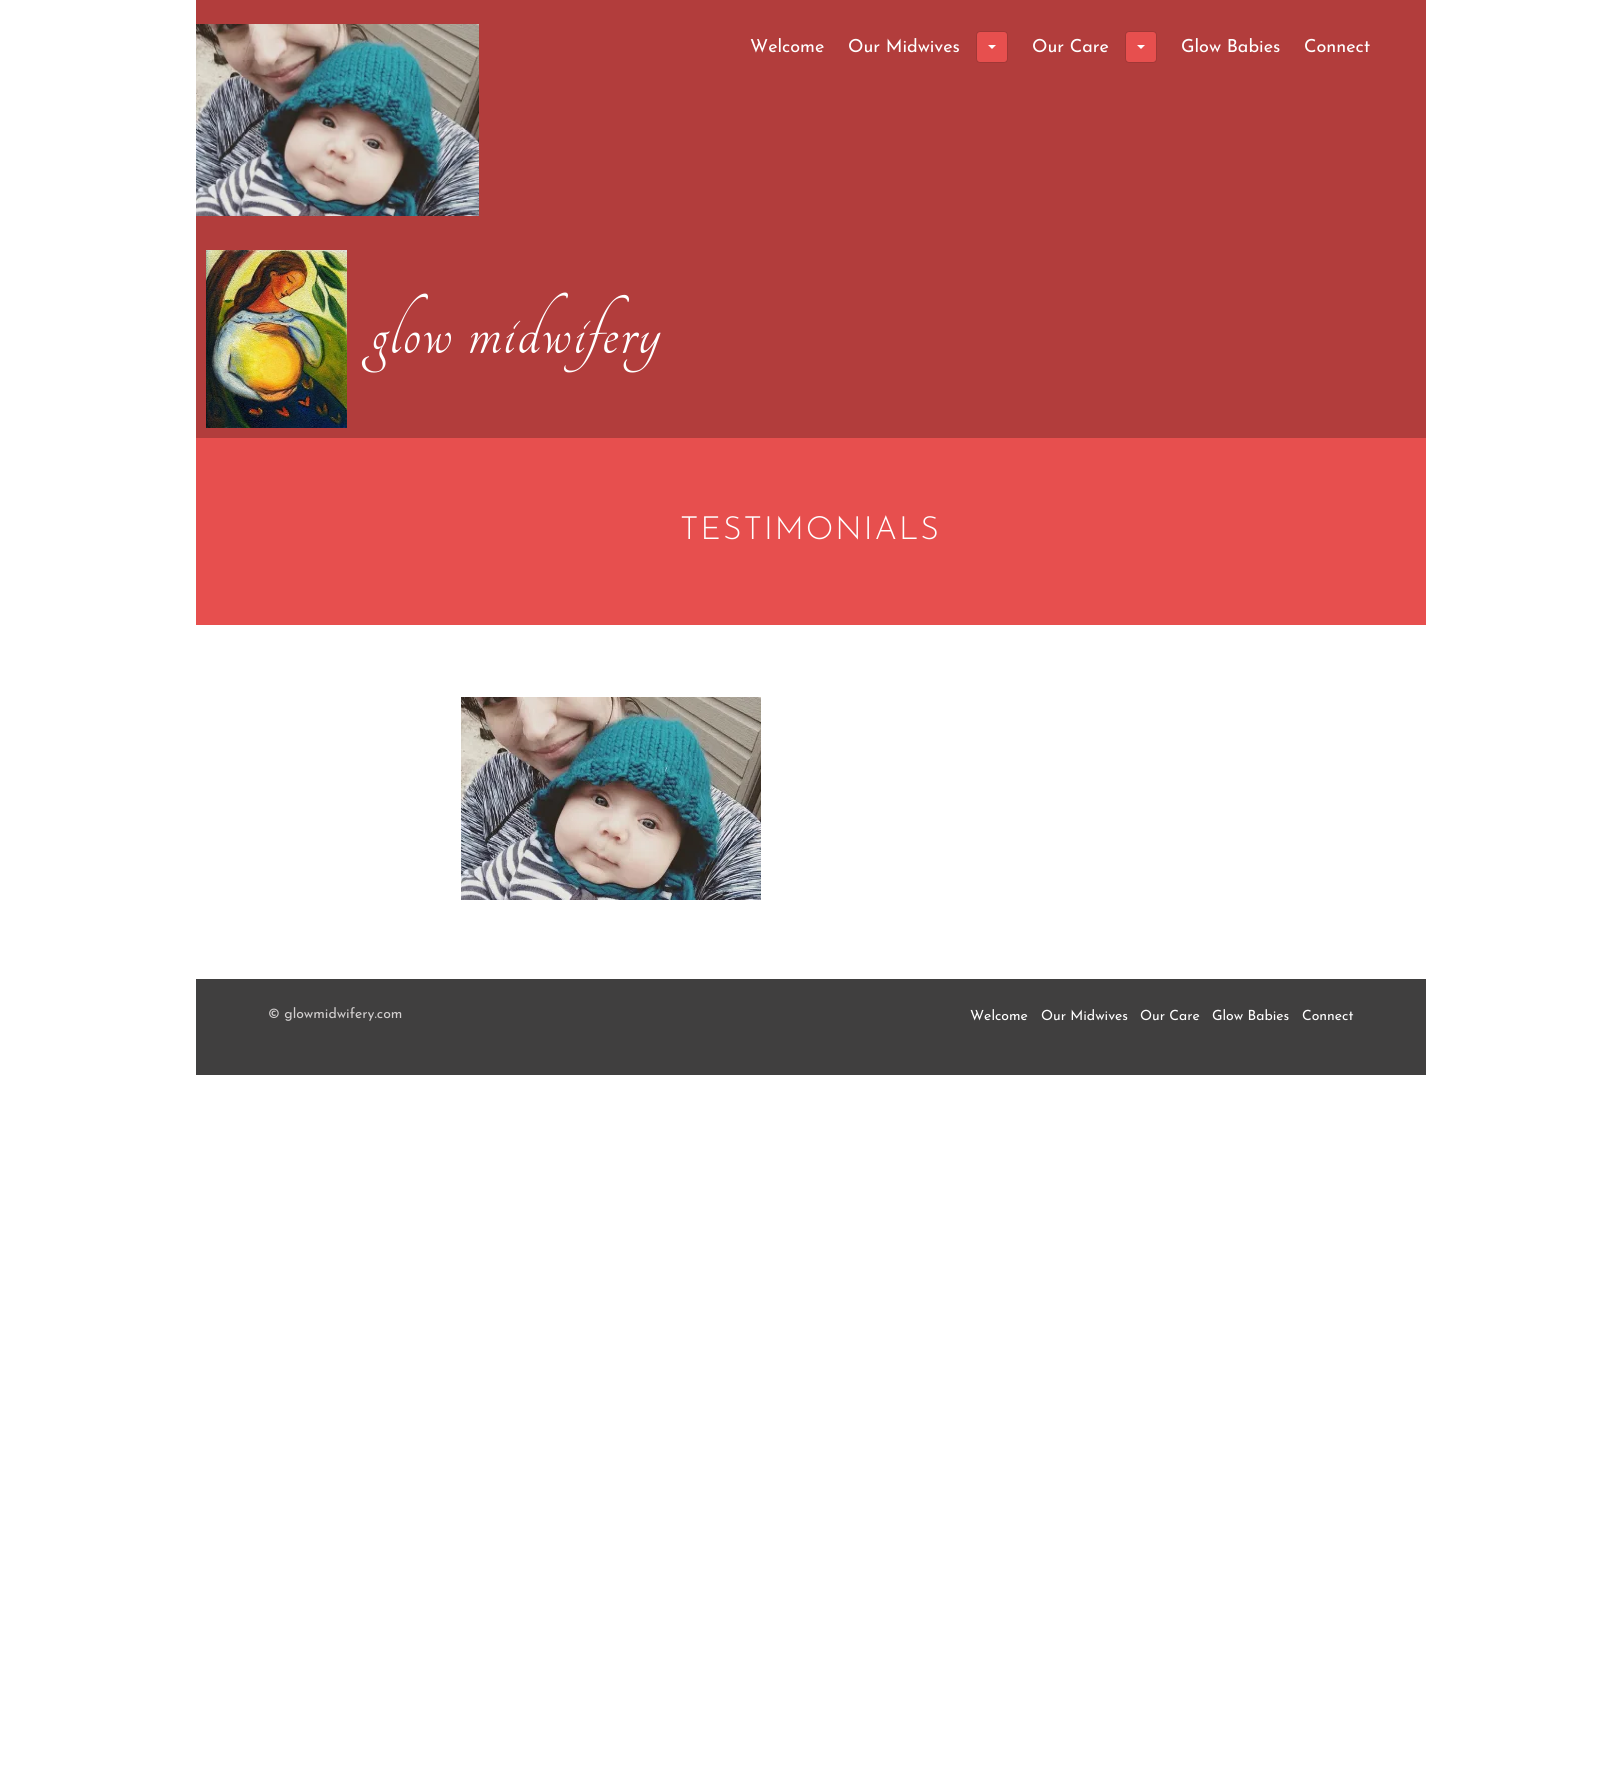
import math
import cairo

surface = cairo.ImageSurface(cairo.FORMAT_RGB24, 1621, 1780)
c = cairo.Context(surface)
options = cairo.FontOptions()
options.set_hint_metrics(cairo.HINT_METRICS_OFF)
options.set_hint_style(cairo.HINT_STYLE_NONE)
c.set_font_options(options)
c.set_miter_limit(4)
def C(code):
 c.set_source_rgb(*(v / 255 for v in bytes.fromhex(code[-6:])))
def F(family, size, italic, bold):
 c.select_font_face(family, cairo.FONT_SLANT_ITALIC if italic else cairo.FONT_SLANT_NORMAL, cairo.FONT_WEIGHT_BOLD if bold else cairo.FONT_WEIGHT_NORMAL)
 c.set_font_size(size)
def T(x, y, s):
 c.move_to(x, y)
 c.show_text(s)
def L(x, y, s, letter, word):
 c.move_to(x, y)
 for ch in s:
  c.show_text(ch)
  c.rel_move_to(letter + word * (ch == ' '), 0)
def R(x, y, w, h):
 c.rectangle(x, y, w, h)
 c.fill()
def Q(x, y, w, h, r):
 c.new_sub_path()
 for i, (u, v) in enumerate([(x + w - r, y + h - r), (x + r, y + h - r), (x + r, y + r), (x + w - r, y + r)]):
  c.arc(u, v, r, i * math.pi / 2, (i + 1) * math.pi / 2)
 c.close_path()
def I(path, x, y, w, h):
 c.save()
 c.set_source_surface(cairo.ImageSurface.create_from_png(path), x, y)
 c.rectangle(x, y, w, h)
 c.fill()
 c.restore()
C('ffffff')
c.paint()
C('b23d3c')
R(196,0,1230,438)
F('Josefin Sans',18,0,0)
C('ffffff')
T(750,52,'Welcome')
T(848,52,'Our Midwives')
C('e74f4e')
Q(976.5,31.5,31,31,3.5)
c.fill_preserve()
C('a13736')
c.set_line_width(1)
c.stroke()
C('ffffff')
c.new_path()
c.move_to(988,45)
c.line_to(996,45)
c.line_to(992,49)
c.close_path()
c.fill()
T(1032,52,'Our Care')
C('e74f4e')
Q(1125.5,31.5,31,31,3.5)
c.fill_preserve()
C('a13736')
c.stroke()
C('ffffff')
c.new_path()
c.move_to(1137,45)
c.line_to(1145,45)
c.line_to(1141,49)
c.close_path()
c.fill()
T(1181,52,'Glow Babies')
T(1304,52,'Connect')
I('1.png',196,24,283,192)
I('2.png',206,250,141,178)
F('Tangerine',80,0,0)
L(371,353,'glow midwifery',2,0)
C('e74f4e')
R(196,438,1230,187)
F('Josefin Sans Light',32,0,0)
C('ffffff')
L(680,539,'TESTIMONIALS',2,0)
I('3.png',461,697,300,203)
C('403f3f')
R(196,979,1230,96)
F('Josefin Sans',14,0,0)
C('d2cfcf')
T(268,1018,'© glowmidwifery.com')
C('ffffff')
T(970,1020,'Welcome')
T(1041,1020,'Our Midwives')
T(1140,1020,'Our Care')
T(1212,1020,'Glow Babies')
T(1302,1020,'Connect')
surface.write_to_png('o.png')
